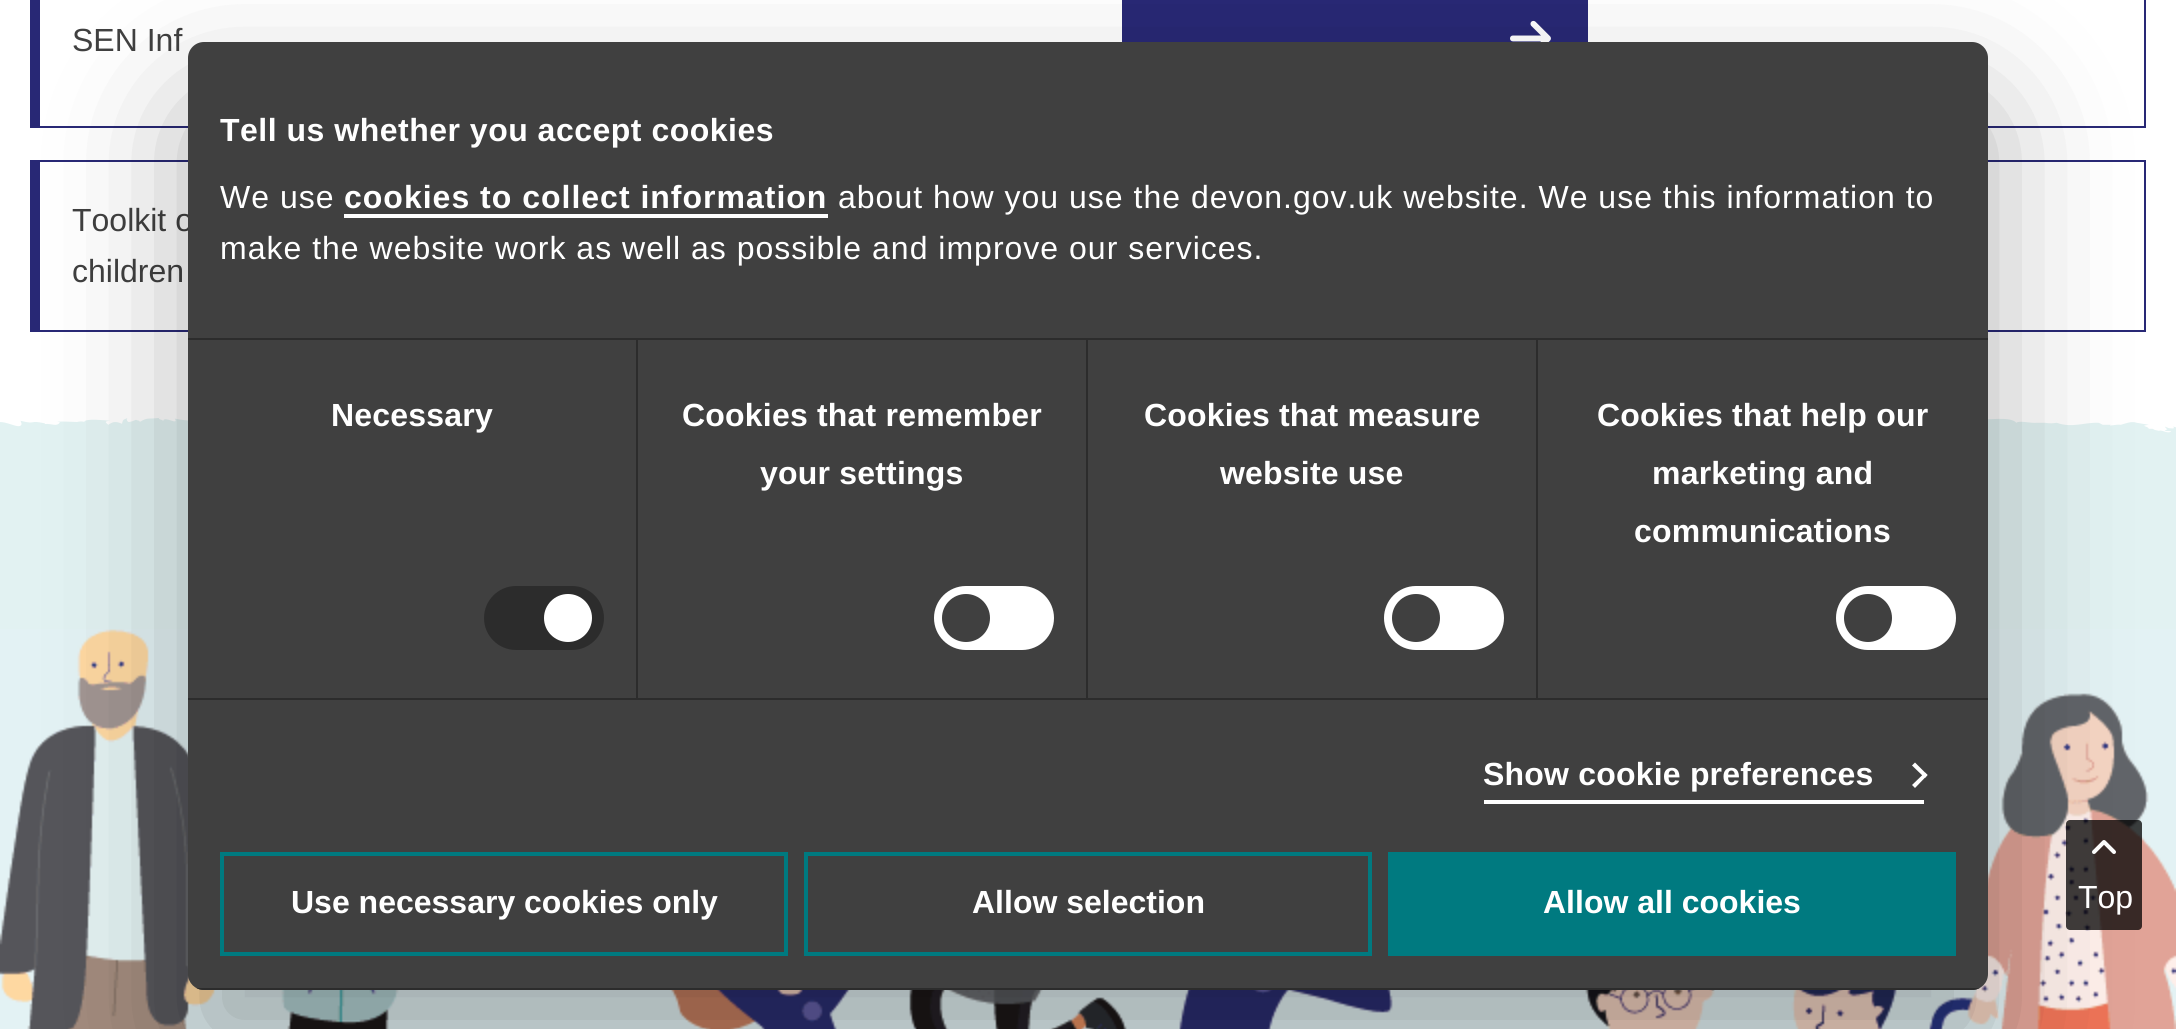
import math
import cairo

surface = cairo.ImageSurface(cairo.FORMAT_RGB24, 2176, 1029)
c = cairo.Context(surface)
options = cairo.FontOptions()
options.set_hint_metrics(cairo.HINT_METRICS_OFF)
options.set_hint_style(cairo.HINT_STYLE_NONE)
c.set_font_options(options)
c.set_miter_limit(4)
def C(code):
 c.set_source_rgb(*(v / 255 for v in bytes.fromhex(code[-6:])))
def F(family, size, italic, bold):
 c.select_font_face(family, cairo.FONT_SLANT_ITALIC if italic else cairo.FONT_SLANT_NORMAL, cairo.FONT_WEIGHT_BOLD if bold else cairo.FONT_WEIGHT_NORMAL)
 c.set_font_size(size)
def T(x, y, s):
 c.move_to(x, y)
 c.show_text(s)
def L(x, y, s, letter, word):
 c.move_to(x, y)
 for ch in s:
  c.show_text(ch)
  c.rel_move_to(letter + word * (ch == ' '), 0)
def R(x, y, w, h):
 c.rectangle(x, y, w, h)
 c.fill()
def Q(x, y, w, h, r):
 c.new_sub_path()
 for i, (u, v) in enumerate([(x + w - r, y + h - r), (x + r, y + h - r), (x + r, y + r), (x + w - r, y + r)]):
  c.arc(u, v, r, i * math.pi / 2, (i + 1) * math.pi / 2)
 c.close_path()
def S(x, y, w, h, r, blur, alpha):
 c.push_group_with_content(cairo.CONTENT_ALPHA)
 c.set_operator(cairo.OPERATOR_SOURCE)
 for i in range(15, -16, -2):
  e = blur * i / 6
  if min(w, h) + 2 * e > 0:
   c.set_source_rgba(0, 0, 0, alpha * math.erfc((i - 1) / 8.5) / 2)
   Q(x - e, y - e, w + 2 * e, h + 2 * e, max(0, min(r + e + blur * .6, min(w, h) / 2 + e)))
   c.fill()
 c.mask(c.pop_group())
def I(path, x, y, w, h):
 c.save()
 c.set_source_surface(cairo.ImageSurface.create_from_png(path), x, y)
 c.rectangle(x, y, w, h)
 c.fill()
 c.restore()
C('ffffff')
c.paint()
C('282875')
R(2144,0,2,128)
R(40,126,2106,2)
R(30,0,10,128)
F('Liberation Sans',32,0,0)
C('404040')
T(72,51,'SEN Inf')
C('282875')
R(1126,0,458,42)
c.rectangle(1124,-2,462,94)
c.set_line_width(4)
c.stroke()
I('1.png',1510,20,41,22)
R(40,160,2106,2)
R(2144,160,2,172)
R(40,330,2106,2)
R(30,160,10,172)
C('404040')
T(72,231,'Toolkit o')
T(72,282,'children')
I('2.png',0,417,2176,63)
C('e2f2f2')
R(0,480,2176,149)
I('3.png',0,629,2176,400)
c.set_source_rgba(0,0,0,0.75)
Q(2066,820,76,110,4)
c.fill()
I('4.png',2092,840,24,14)
C('000000')
S(188,106,1800,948,16,68,.3)
C('404040')
Q(188,42,1800,948,16)
c.fill()
C('2c2c2c')
R(188,338,1800,2)
F('Liberation Sans',32,0,1)
C('ffffff')
L(220,141,'Tell us whether you accept cookies',.5,0)
F('Liberation Sans',32,0,0)
L(220,208,'We use',1,0)
F('Liberation Sans',32,0,1)
L(344,208,'cookies to collect information',1,0)
R(344,214,484,4)
F('Liberation Sans',32,0,0)
L(838,208,'about how you use the devon.gov.uk website. We use this information to',1,0)
L(220,259,'make the website work as well as possible and improve our services.',1,0)
C('2c2c2c')
R(188,698,1800,2)
R(636,340,2,358)
F('Liberation Sans',32,0,1)
C('ffffff')
L(331,426,'Necessary',.2,0)
C('2c2c2c')
Q(484,586,120,64,32)
c.fill()
C('ffffff')
c.arc(568,618,24,0,2 * math.pi)
c.fill()
C('2c2c2c')
R(1086,340,2,358)
C('ffffff')
L(682,426,'Cookies that remember',.2,0)
L(760,484,'your settings',.2,0)
Q(934,586,120,64,32)
c.fill()
C('404040')
c.arc(966,618,24,0,2 * math.pi)
c.fill()
C('2c2c2c')
R(1536,340,2,358)
C('ffffff')
L(1144,426,'Cookies that measure',.2,0)
L(1220,484,'website use',.2,0)
Q(1384,586,120,64,32)
c.fill()
C('404040')
c.arc(1416,618,24,0,2 * math.pi)
c.fill()
C('ffffff')
L(1597,426,'Cookies that help our',.2,0)
L(1652,484,'marketing and',.2,0)
L(1634,542,'communications',.2,0)
Q(1836,586,120,64,32)
c.fill()
C('404040')
c.arc(1868,618,24,0,2 * math.pi)
c.fill()
C('ffffff')
R(1484,800,440,4)
L(1483,785,'Show cookie preferences',.2,0)
c.new_path()
c.move_to(1915,762.5)
c.line_to(1927.5,775)
c.line_to(1925,778)
c.line_to(1912,765.5)
c.close_path()
c.fill()
c.new_path()
c.move_to(1925,772.5)
c.line_to(1927.5,775)
c.line_to(1915,788)
c.line_to(1912,785)
c.close_path()
c.fill()
c.save()
Q(188,42,1800,948,16)
c.clip()
C('2c2c2c')
R(188,988,1800,2)
c.restore()
c.rectangle(222,854,564,100)
C('007a80')
c.stroke()
C('ffffff')
T(291,913,'Use necessary cookies only')
c.rectangle(806,854,564,100)
C('007a80')
c.stroke()
C('ffffff')
T(972,913,'Allow selection')
C('007a80')
R(1388,852,568,104)
C('ffffff')
T(1543,913,'Allow all cookies')
F('Liberation Sans',32,0,0)
T(2078,908,'Top')
surface.write_to_png('o.png')
